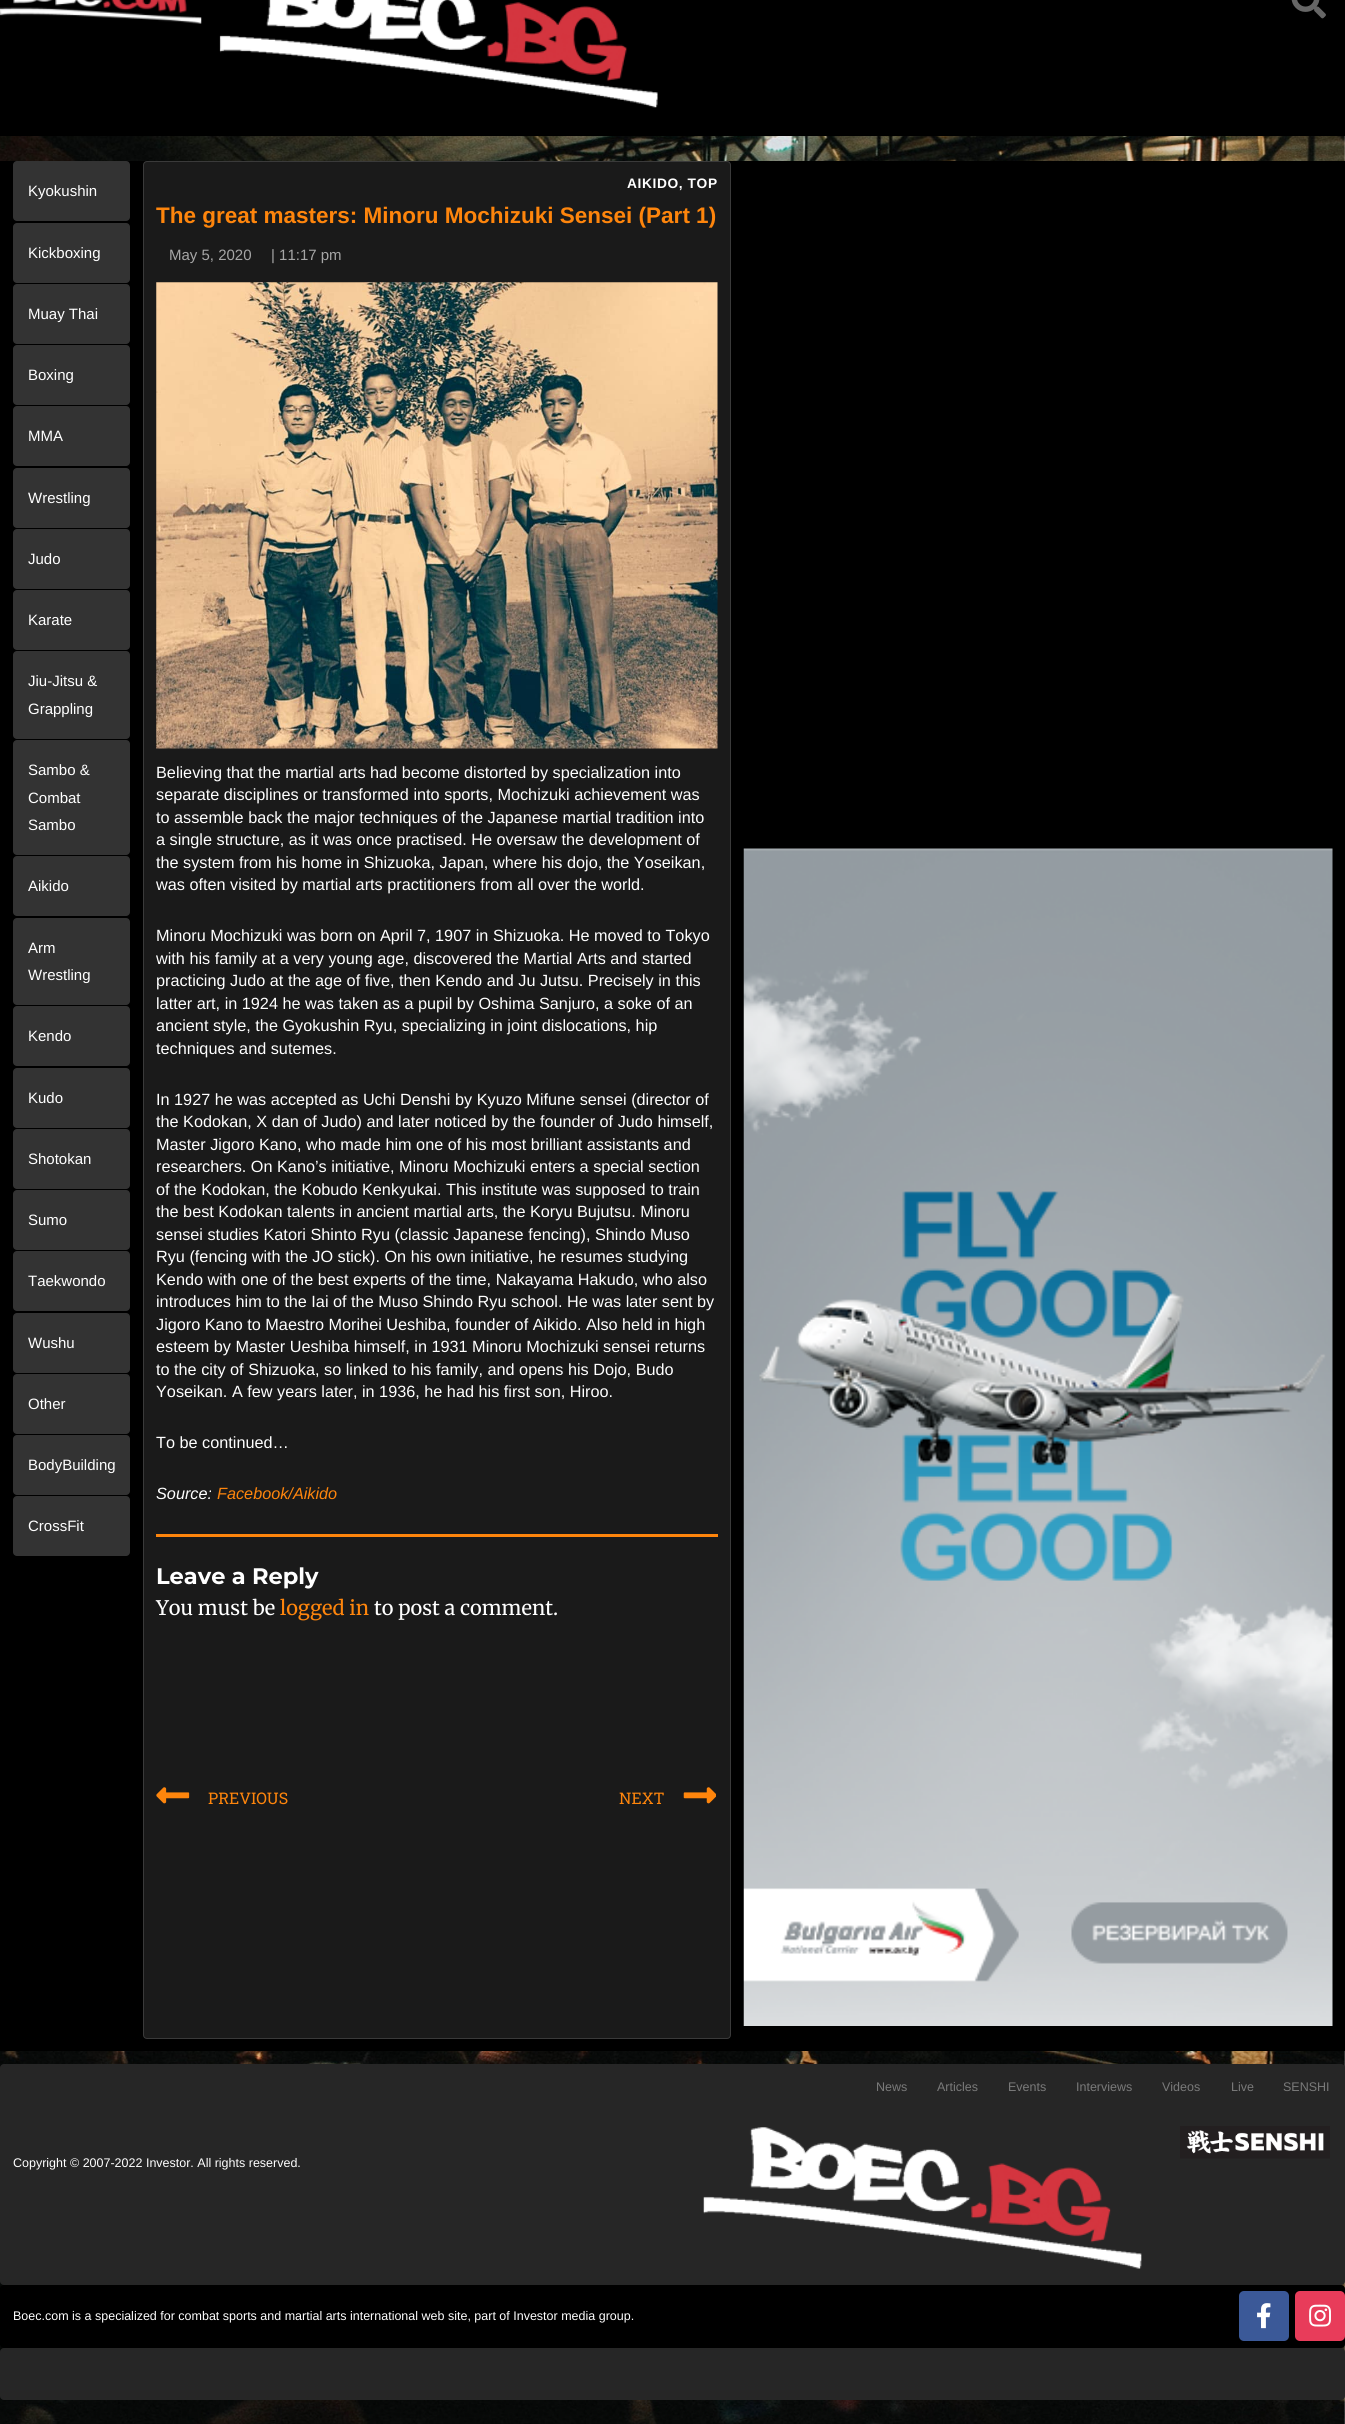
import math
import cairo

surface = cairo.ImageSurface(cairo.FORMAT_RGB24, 1345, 2424)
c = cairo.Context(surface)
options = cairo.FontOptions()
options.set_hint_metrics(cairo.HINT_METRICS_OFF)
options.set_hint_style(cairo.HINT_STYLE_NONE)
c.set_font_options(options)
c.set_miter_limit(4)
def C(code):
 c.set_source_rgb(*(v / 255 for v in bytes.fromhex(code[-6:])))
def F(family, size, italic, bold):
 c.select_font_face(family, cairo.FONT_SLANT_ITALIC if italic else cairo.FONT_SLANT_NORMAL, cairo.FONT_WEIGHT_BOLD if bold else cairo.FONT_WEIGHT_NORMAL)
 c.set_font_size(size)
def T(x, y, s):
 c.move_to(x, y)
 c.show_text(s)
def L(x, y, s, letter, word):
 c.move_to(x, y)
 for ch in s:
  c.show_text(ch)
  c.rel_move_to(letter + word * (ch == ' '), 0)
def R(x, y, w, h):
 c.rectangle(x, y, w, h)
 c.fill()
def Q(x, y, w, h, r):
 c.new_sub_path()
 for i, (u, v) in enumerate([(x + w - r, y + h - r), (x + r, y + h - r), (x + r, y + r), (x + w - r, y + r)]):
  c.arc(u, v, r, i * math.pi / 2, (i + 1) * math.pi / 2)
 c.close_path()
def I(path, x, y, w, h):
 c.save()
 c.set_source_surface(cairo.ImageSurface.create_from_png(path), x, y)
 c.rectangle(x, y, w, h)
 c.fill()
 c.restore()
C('ffffff')
c.paint()
I('1.png',0,136,1345,2288)
C('000000')
R(0,0,1345,136)
I('2.png',0,0,202,24)
I('3.png',219,0,439,108)
I('4.png',1291,0,35,19)
R(0,161,1345,1890)
C('333333')
Q(13,161,117,60,4)
c.fill()
F('Liberation Sans',15,0,0)
C('ffffff')
T(28,196,'Kyokushin')
C('333333')
Q(13,223,117,60,4)
c.fill()
C('ffffff')
T(28,258,'Kickboxing')
C('333333')
Q(13,284,117,60,4)
c.fill()
C('ffffff')
T(28,319,'Muay Thai')
C('333333')
Q(13,345,117,60,4)
c.fill()
C('ffffff')
T(28,380,'Boxing')
C('333333')
Q(13,406,117,60,4)
c.fill()
C('ffffff')
T(28,441,'MMA')
C('333333')
Q(13,468,117,60,4)
c.fill()
C('ffffff')
T(28,503,'Wrestling')
C('333333')
Q(13,529,117,60,4)
c.fill()
C('ffffff')
T(28,564,'Judo')
C('333333')
Q(13,590,117,60,4)
c.fill()
C('ffffff')
T(28,625,'Karate')
C('333333')
Q(13,651,117,88,4)
c.fill()
C('ffffff')
T(28,686,'Jiu-Jitsu &')
T(28,714,'Grappling')
C('333333')
Q(13,740,117,115,4)
c.fill()
C('ffffff')
T(28,775,'Sambo &')
T(28,803,'Combat')
T(28,830,'Sambo')
C('333333')
Q(13,856,117,60,4)
c.fill()
C('ffffff')
T(28,891,'Aikido')
C('333333')
Q(13,918,117,87,4)
c.fill()
C('ffffff')
T(28,953,'Arm')
T(28,980,'Wrestling')
C('333333')
Q(13,1006,117,60,4)
c.fill()
C('ffffff')
T(28,1041,'Kendo')
C('333333')
Q(13,1068,117,60,4)
c.fill()
C('ffffff')
T(28,1103,'Kudo')
C('333333')
Q(13,1129,117,60,4)
c.fill()
C('ffffff')
T(28,1164,'Shotokan')
C('333333')
Q(13,1190,117,60,4)
c.fill()
C('ffffff')
T(28,1225,'Sumo')
C('333333')
Q(13,1251,117,60,4)
c.fill()
C('ffffff')
T(28,1286,'Taekwondo')
C('333333')
Q(13,1313,117,60,4)
c.fill()
C('ffffff')
T(28,1348,'Wushu')
C('333333')
Q(13,1374,117,60,4)
c.fill()
C('ffffff')
T(28,1409,'Other')
C('333333')
Q(13,1435,117,60,4)
c.fill()
C('ffffff')
T(28,1470,'BodyBuilding')
C('333333')
Q(13,1496,117,60,4)
c.fill()
C('ffffff')
T(28,1531,'CrossFit')
C('1a1a1a')
Q(143.5,161.5,587,1877,3.5)
c.fill_preserve()
C('3a3a3a')
c.set_line_width(1)
c.stroke()
F('Liberation Sans',13.75,0,1)
C('ffffff')
L(627,188,'AIKIDO, TOP',.6,0)
F('Liberation Sans',22.5,0,1)
C('fe850c')
T(156,223,'The great masters: Minoru Mochizuki Sensei (Part 1)')
F('Liberation Sans',15,0,0)
C('a6a6a6')
T(169,260,'May 5, 2020')
T(271,260,'| 11:17 pm')
I('5.png',156,282,562,467)
F('Liberation Sans',16.25,0,0)
C('ffffff')
T(156,778,'Believing that the martial arts had become distorted by specialization into')
T(156,800,'separate disciplines or transformed into sports, Mochizuki achievement was')
T(156,823,'to assemble back the major techniques of the Japanese martial tradition into')
T(156,845,'a single structure, as it was once practised. He oversaw the development of')
T(156,868,'the system from his home in Shizuoka, Japan, where his dojo, the Yoseikan,')
T(156,890,'was often visited by martial arts practitioners from all over the world.')
T(156,941,'Minoru Mochizuki was born on April 7, 1907 in Shizuoka. He moved to Tokyo')
T(156,964,'with his family at a very young age, discovered the Martial Arts and started')
T(156,986,'practicing Judo at the age of five, then Kendo and Ju Jutsu. Precisely in this')
T(156,1009,'latter art, in 1924 he was taken as a pupil by Oshima Sanjuro, a soke of an')
T(156,1031,'ancient style, the Gyokushin Ryu, specializing in joint dislocations, hip')
T(156,1054,'techniques and sutemes.')
T(156,1105,'In 1927 he was accepted as Uchi Denshi by Kyuzo Mifune sensei (director of')
T(156,1127,'the Kodokan, X dan of Judo) and later noticed by the founder of Judo himself,')
T(156,1150,'Master Jigoro Kano, who made him one of his most brilliant assistants and')
T(156,1172,'researchers. On Kano’s initiative, Minoru Mochizuki enters a special section')
T(156,1195,'of the Kodokan, the Kobudo Kenkyukai. This institute was supposed to train')
T(156,1217,'the best Kodokan talents in ancient martial arts, the Koryu Bujutsu. Minoru')
T(156,1240,'sensei studies Katori Shinto Ryu (classic Japanese fencing), Shindo Muso')
T(156,1262,'Ryu (fencing with the JO stick). On his own initiative, he resumes studying')
T(156,1285,'Kendo with one of the best experts of the time, Nakayama Hakudo, who also')
T(156,1307,'introduces him to the Iai of the Muso Shindo Ryu school. He was later sent by')
T(156,1330,'Jigoro Kano to Maestro Morihei Ueshiba, founder of Aikido. Also held in high')
T(156,1352,'esteem by Master Ueshiba himself, in 1931 Minoru Mochizuki sensei returns')
T(156,1375,'to the city of Shizuoka, so linked to his family, and opens his Dojo, Budo')
T(156,1397,'Yoseikan. A few years later, in 1936, he had his first son, Hiroo.')
T(156,1448,'To be continued…')
F('Liberation Sans',16.25,1,0)
T(156,1499,'Source:')
C('fe850c')
T(217,1499,'Facebook/Aikido')
R(156,1534,562,3)
F('Montserrat',22.5,0,1)
C('ffffff')
T(156,1584,'Leave a Reply')
F('Merriweather',20,0,0)
T(156,1615,'You must be')
C('fe850c')
T(280,1615,'logged in')
C('ffffff')
T(374,1615,'to post a comment.')
I('6.png',156,1787,34,17)
F('Roboto Slab',16,0,0)
C('fe850c')
T(208,1804,'PREVIOUS')
T(619,1804,'NEXT')
I('7.png',683,1787,33,17)
I('8.png',743,848,590,1178)
C('262626')
Q(0,2064,1345,221,4)
c.fill()
F('Liberation Sans',12.5,0,0)
C('7a7a7a')
T(876,2091,'News')
T(937,2091,'Articles')
T(1008,2091,'Events')
T(1076,2091,'Interviews')
T(1162,2091,'Videos')
T(1231,2091,'Live')
T(1283,2091,'SENSHI')
I('9.png',703,2127,439,142)
I('10.png',1180,2126,150,33)
C('ffffff')
T(13,2167,'Copyright © 2007-2022 Investor. All rights reserved.')
C('000000')
Q(0,2285,1345,63,4)
c.fill()
C('ffffff')
T(13,2320,'Boec.com is a specialized for combat sports and martial arts international web site, part of Investor media group.')
C('3b5998')
Q(1239,2291,50,50,5)
c.fill()
I('11.png',1257,2303,14,26)
C('e83c5a')
Q(1295,2291,50,50,5)
c.fill()
I('12.png',1309,2304,22,23)
C('262626')
Q(0,2348,1345,52,4)
c.fill()
surface.write_to_png('o.png')
